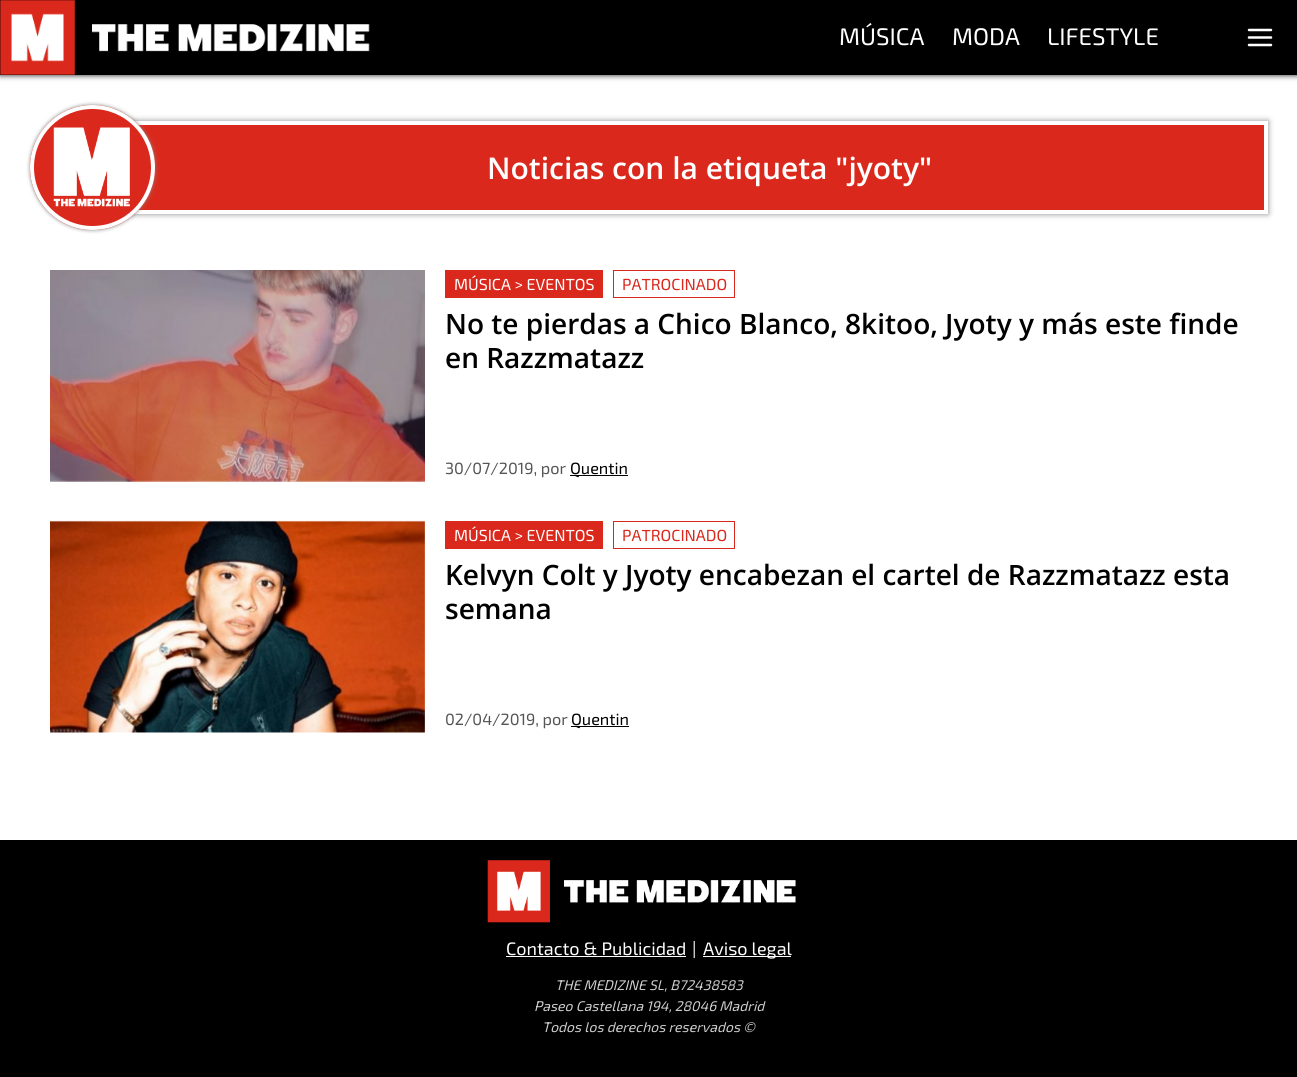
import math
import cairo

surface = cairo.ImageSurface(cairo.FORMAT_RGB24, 1297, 1077)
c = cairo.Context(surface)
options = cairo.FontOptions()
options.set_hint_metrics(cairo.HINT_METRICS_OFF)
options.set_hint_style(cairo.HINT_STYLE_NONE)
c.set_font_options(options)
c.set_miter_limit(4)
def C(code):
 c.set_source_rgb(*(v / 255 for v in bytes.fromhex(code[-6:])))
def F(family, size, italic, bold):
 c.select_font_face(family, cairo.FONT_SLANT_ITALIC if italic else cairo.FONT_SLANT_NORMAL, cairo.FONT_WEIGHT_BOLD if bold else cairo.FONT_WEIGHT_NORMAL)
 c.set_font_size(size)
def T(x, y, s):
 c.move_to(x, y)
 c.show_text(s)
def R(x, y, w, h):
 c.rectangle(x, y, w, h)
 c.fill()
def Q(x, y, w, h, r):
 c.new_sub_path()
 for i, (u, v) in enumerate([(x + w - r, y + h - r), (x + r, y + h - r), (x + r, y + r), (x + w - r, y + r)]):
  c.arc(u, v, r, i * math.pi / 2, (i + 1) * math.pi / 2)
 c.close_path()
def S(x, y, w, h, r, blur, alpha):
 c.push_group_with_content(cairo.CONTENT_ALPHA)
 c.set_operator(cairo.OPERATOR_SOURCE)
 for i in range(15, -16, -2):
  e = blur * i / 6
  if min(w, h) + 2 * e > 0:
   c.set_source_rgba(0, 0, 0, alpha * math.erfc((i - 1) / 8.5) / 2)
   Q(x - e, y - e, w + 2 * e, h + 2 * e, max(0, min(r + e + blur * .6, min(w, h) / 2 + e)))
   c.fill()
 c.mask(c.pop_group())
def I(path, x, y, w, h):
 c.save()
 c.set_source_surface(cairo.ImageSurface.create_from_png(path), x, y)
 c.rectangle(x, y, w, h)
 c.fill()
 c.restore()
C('ffffff')
c.paint()
C('000000')
S(0,0,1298,75,0,3,.9)
C('000000')
R(0,0,1297,75)
I('1.png',0,0,370,75)
F('Exo 2',24,0,0)
C('ffffff')
T(839,45,'MÚSICA')
T(952,45,'MODA')
T(1047,45,'LIFESTYLE')
c.new_path()
c.move_to(1249,37.5)
c.line_to(1271,37.5)
c.move_to(1249,30)
c.line_to(1271,30)
c.move_to(1249,45)
c.line_to(1271,45)
c.set_line_width(2.5)
c.set_line_cap(cairo.LINE_CAP_ROUND)
c.set_line_join(cairo.LINE_JOIN_ROUND)
c.stroke()
C('888888')
S(93,121,1175,93,0,3,1)
C('da291c')
R(138,125,1126,85)
c.rectangle(95,123,1171,89)
C('ffffff')
c.set_line_width(4)
c.set_line_cap(cairo.LINE_CAP_BUTT)
c.set_line_join(cairo.LINE_JOIN_MITER)
c.stroke()
C('888888')
S(30,105,125,125,62.5,2,1)
C('da291c')
c.arc(92.5,167.5,62.5,0,2 * math.pi)
c.fill()
I('2.png',53,127,77,80)
c.arc(92.5,167.5,60.5,0,2 * math.pi)
C('ffffff')
c.stroke()
F('Open Sans SemiBold',30,0,0)
T(487,179,'Noticias con la etiqueta "jyoty"')
I('3.png',50,270,375,212)
C('da291c')
R(445,270,158,28)
F('Exo 2',16,0,0)
C('ffffff')
T(454,290,'MÚSICA > EVENTOS')
c.rectangle(613.5,270.5,121,27)
C('da291c')
c.set_line_width(1)
c.stroke()
T(622,290,'PATROCINADO')
F('Open Sans SemiBold',28,0,0)
C('000000')
T(445,334,'No te pierdas a Chico Blanco, 8kitoo, Jyoty y más este finde')
T(445,368,'en Razzmatazz')
F('Exo 2',16.25,0,0)
C('555555')
T(445,474,'30/07/2019, por')
C('000000')
R(570,475,58,1)
T(570,474,'Quentin')
I('4.png',50,520,375,213)
C('da291c')
R(445,521,158,28)
F('Exo 2',16,0,0)
C('ffffff')
T(454,541,'MÚSICA > EVENTOS')
c.rectangle(613.5,521.5,121,27)
C('da291c')
c.stroke()
T(622,541,'PATROCINADO')
F('Open Sans SemiBold',28,0,0)
C('000000')
T(445,585,'Kelvyn Colt y Jyoty encabezan el cartel de Razzmatazz esta')
T(445,619,'semana')
F('Exo 2',16.25,0,0)
C('555555')
T(445,725,'02/04/2019, por')
C('000000')
R(571,726,58,1)
T(571,725,'Quentin')
R(0,840,1297,237)
I('5.png',487,860,309,63)
F('Exo 2',18,0,0)
C('ffffff')
T(506,955,'Contacto & Publicidad')
R(506,956,180,1)
T(692,955,'|')
R(703,956,88,1)
T(703,955,'Aviso legal')
F('Exo 2',14,1,0)
C('cccccc')
T(555,990,'THE MEDIZINE SL, B72438583')
T(534,1011,'Paseo Castellana 194, 28046 Madrid')
T(542,1032,'Todos los derechos reservados ©')
surface.write_to_png('o.png')
